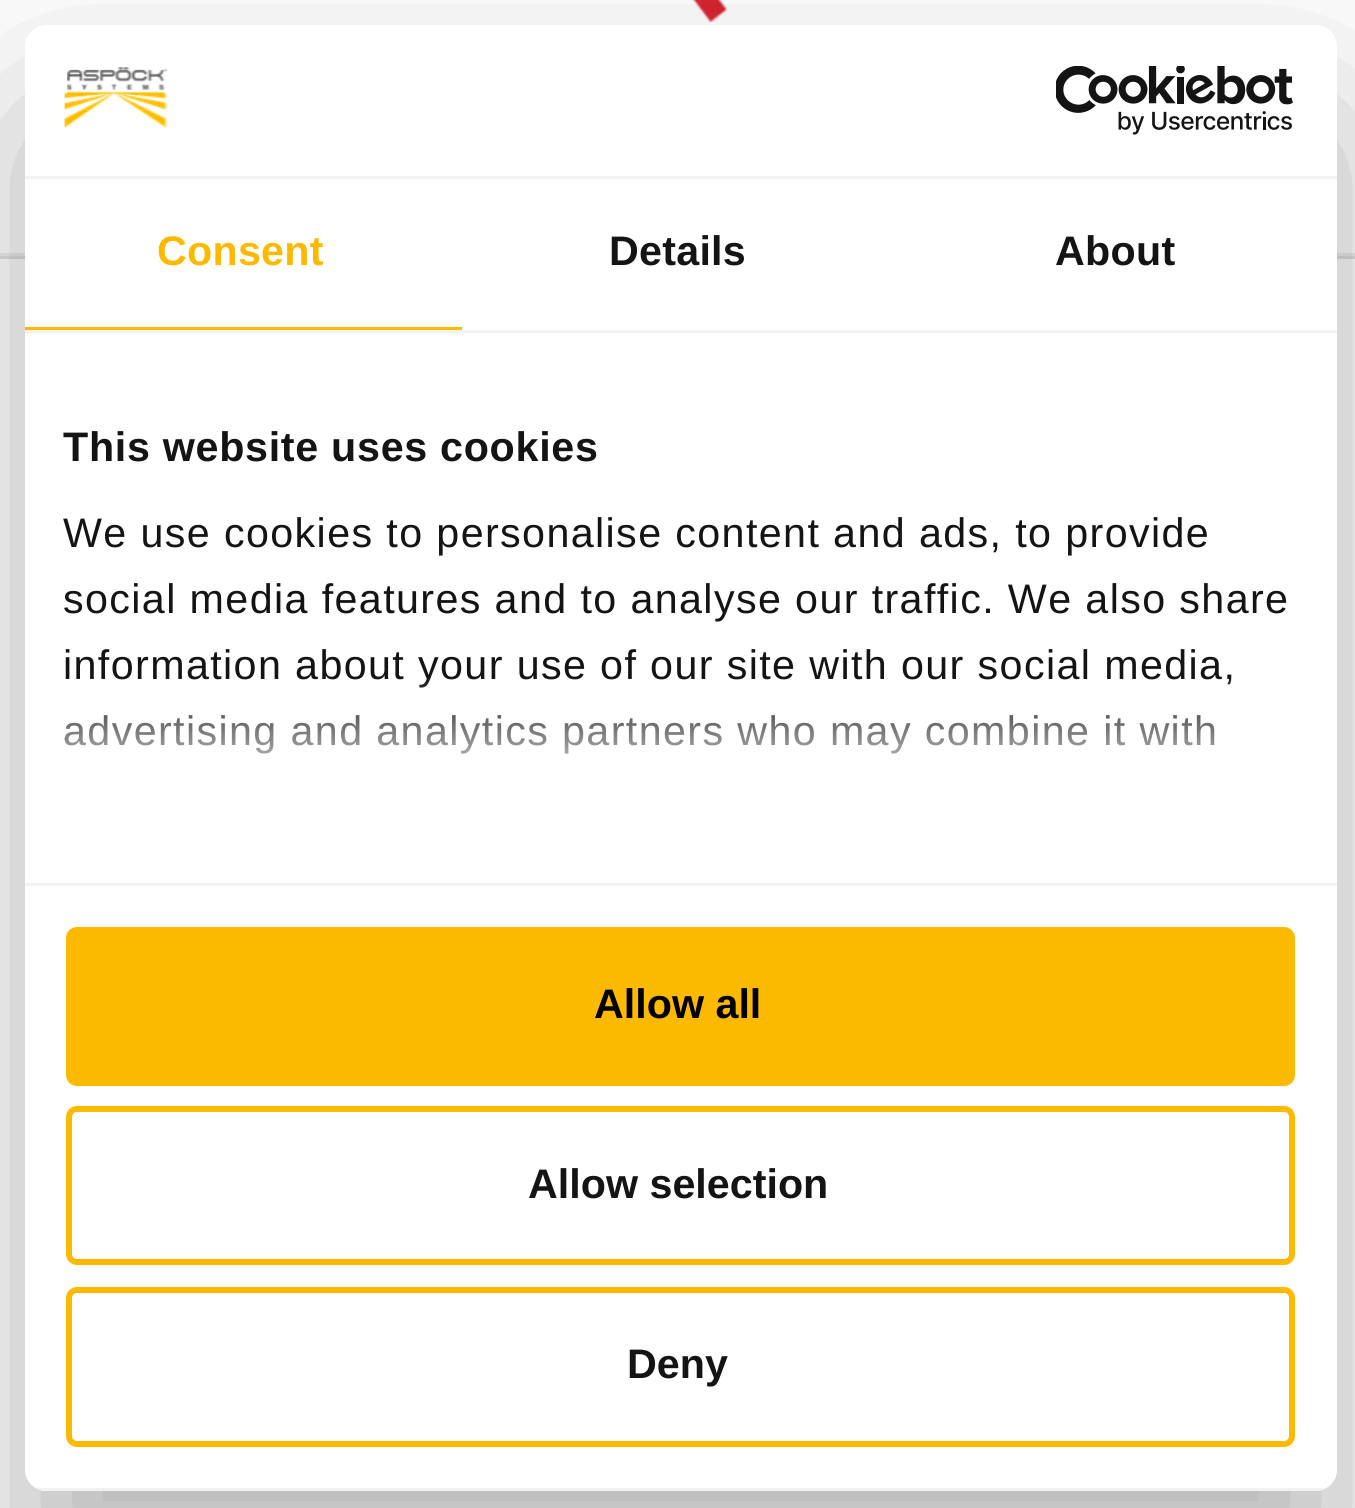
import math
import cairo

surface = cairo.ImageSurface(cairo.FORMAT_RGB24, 1355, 1508)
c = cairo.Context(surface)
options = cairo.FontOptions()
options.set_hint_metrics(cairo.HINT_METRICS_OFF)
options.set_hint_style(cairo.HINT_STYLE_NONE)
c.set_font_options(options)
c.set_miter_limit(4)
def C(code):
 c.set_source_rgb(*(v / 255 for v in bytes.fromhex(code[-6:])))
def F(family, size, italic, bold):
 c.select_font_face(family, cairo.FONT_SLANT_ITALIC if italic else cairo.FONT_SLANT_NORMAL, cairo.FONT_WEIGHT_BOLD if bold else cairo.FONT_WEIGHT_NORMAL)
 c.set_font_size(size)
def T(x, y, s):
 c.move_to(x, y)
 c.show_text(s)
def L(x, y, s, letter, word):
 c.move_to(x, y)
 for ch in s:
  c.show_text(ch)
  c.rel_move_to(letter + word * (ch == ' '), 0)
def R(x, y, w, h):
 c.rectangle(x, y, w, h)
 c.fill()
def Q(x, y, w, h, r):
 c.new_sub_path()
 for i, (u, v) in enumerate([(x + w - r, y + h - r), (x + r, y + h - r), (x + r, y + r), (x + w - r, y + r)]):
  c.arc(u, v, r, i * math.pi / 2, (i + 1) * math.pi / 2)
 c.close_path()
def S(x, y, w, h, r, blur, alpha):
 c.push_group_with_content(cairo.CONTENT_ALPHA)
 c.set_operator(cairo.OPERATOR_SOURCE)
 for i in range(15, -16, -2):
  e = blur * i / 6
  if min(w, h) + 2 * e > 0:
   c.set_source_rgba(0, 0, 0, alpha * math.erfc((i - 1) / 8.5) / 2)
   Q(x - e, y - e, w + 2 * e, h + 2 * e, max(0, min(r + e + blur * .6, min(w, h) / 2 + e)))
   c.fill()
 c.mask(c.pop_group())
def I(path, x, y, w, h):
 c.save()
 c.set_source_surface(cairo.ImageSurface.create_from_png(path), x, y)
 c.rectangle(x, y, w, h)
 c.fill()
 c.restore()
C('ffffff')
c.paint()
I('1.png',692,0,36,23)
C('dfdfdf')
R(0,256,1355,3)
C('eeeeee')
R(0,253,1355,3)
c.save()
c.set_fill_rule(cairo.FILL_RULE_EVEN_ODD)
c.new_path()
c.move_to(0,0)
c.line_to(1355,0)
c.line_to(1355,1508)
c.line_to(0,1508)
c.close_path()
c.move_to(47,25)
c.line_to(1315,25)
c.curve_to(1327,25,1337,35,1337,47)
c.line_to(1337,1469)
c.curve_to(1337,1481,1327,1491,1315,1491)
c.line_to(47,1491)
c.curve_to(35,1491,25,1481,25,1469)
c.line_to(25,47)
c.curve_to(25,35,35,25,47,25)
c.close_path()
c.clip()
C('000000')
S(25,113,1312,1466,22,93.5,.3)
c.restore()
C('ffffff')
Q(25,25,1312,1466,22)
c.fill()
C('f2f2f1')
R(25,176,1312,3)
I('2.png',64,67,104,61)
I('3.png',1056,66,237,69)
R(25,330,1312,3)
C('fbb900')
R(25,327,437,3)
F('Liberation Sans',41.25,0,1)
L(157,265,'Consent',.25,0)
C('141414')
L(609,265,'Details',.25,0)
L(1055,265,'About',.25,0)
C('f2f2f1')
R(25,883,1312,3)
C('141414')
L(63,461,'This website uses cookies',.7,0)
F('Liberation Sans',41.25,0,0)
L(63,547,'We use cookies to personalise content and ads, to provide',1.38,0)
L(63,613,'social media features and to analyse our traffic. We also share',1.38,0)
L(63,679,'information about your use of our site with our social media,',1.38,0)
L(63,745,'advertising and analytics partners who may combine it with',1.38,0)
gradient = cairo.LinearGradient(661,881,661,675)
gradient.add_color_stop_rgba(0,1,1,1,1)
gradient.add_color_stop_rgba(.5,1,1,1,.8)
gradient.add_color_stop_rgba(1,1,1,1,0)
c.set_source(gradient)
R(65,678,1166,76)
c.save()
Q(25,25,1312,1466,22)
c.clip()
C('f2f2f1')
R(36,1488,1290,3)
c.restore()
C('fbb900')
Q(69,930,1223,153,8)
c.fill_preserve()
c.set_line_width(6)
c.stroke()
F('Liberation Sans',41.25,0,1)
C('000000')
T(594,1018,'Allow all')
Q(69,1109,1223,153,8)
C('fbb900')
c.stroke()
C('141414')
T(528,1198,'Allow selection')
Q(69,1290,1223,154,8)
C('fbb900')
c.stroke()
C('141414')
T(627,1378,'Deny')
surface.write_to_png('o.png')
